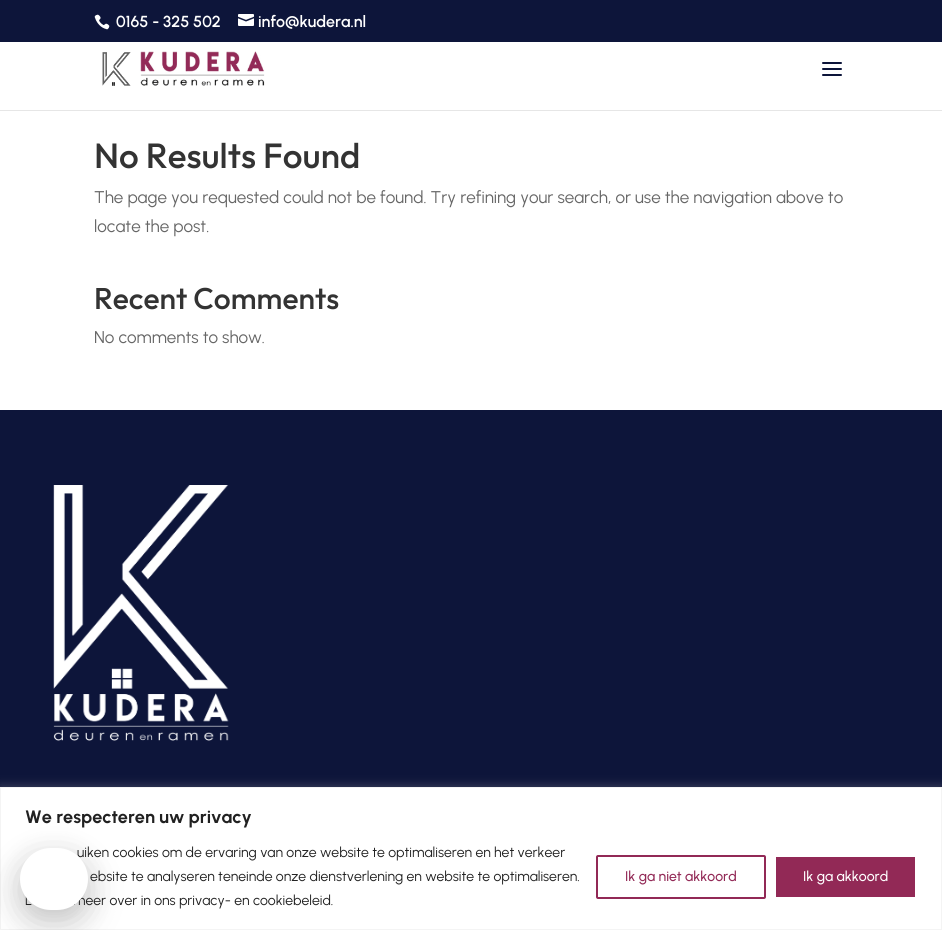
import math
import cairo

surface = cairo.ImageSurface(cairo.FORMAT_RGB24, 942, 930)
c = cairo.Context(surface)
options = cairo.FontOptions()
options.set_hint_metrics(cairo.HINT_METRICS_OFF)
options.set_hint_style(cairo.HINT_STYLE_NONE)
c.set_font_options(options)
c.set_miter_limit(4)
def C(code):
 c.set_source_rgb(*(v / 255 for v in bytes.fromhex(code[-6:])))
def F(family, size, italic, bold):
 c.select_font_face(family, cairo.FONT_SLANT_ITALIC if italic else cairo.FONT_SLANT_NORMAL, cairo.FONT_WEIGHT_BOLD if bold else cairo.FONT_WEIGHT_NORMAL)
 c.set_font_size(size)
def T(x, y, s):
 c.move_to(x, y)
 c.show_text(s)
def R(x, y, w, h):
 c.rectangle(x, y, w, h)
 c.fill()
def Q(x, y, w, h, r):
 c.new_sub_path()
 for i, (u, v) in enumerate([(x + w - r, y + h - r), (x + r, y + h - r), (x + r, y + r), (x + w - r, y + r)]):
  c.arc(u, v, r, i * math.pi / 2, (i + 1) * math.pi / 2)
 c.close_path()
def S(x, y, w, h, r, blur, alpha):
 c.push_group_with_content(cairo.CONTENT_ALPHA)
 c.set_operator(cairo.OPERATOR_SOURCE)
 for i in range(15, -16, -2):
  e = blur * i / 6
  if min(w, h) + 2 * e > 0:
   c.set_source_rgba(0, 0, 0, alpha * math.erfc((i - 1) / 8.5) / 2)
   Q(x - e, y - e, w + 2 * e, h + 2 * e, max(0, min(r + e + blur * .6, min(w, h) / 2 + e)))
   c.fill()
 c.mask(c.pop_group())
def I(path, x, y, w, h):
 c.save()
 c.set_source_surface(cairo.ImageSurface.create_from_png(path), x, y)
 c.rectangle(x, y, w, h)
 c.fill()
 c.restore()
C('ffffff')
c.paint()
C('0d153a')
R(0,0,942,42)
I('1.png',94,14,16,16)
F('Urbanist SemiBold',16,0,0)
C('ffffff')
T(116,27,'0165 - 325 502')
I('2.png',238,14,16,12)
T(258,27,'info@kudera.nl')
C('e6e6e6')
R(0,110,942,1)
I('3.png',102,51,163,35)
I('4.png',822,62,20,14)
F('Outfit Medium',35,0,0)
C('333333')
T(94,168,'No Results Found')
F('Urbanist',17,0,0)
C('666666')
T(94,203,'The page you requested could not be found. Try refining your search, or use the navigation above to')
T(94,232,'locate the post.')
F('Outfit Medium',30,0,0)
C('333333')
T(94,309,'Recent Comments')
F('Urbanist',17,0,0)
C('666666')
T(94,343,'No comments to show.')
C('0d153a')
R(0,410,942,377)
I('5.png',53,485,176,256)
C('acabab')
S(0,786,942,143,0,5,.3)
C('ffffff')
c.rectangle(.5,787.5,941,142)
c.fill_preserve()
C('f4f4f4')
c.set_line_width(1)
c.stroke()
C('000000')
S(20,858,68,62,31,15,.15)
S(20,863,68,62,31,20,.1)
F('Urbanist',14,0,0)
C('212121')
T(77,857,'uiken cookies om de ervaring van onze website te optimaliseren en het verkeer')
T(25,905,'L')
T(73,905,'meer over in ons privacy- en cookiebeleid.')
C('ffffff')
Q(20,848,68,62,31)
c.fill()
F('Urbanist',18,0,1)
C('212121')
T(25,823,'We respecteren uw privacy')
F('Urbanist',14,0,0)
T(90,881,'ebsite te analyseren teneinde onze dienstverlening en website te optimaliseren.')
Q(597,856,168,42,1)
C('922956')
c.set_line_width(2)
c.stroke()
F('Urbanist Medium',14,0,0)
T(625,881,'Ik ga niet akkoord')
Q(775,856,141,42,1)
c.fill_preserve()
C('ffffff')
c.stroke()
T(803,881,'Ik ga akkoord')
surface.write_to_png('o.png')
